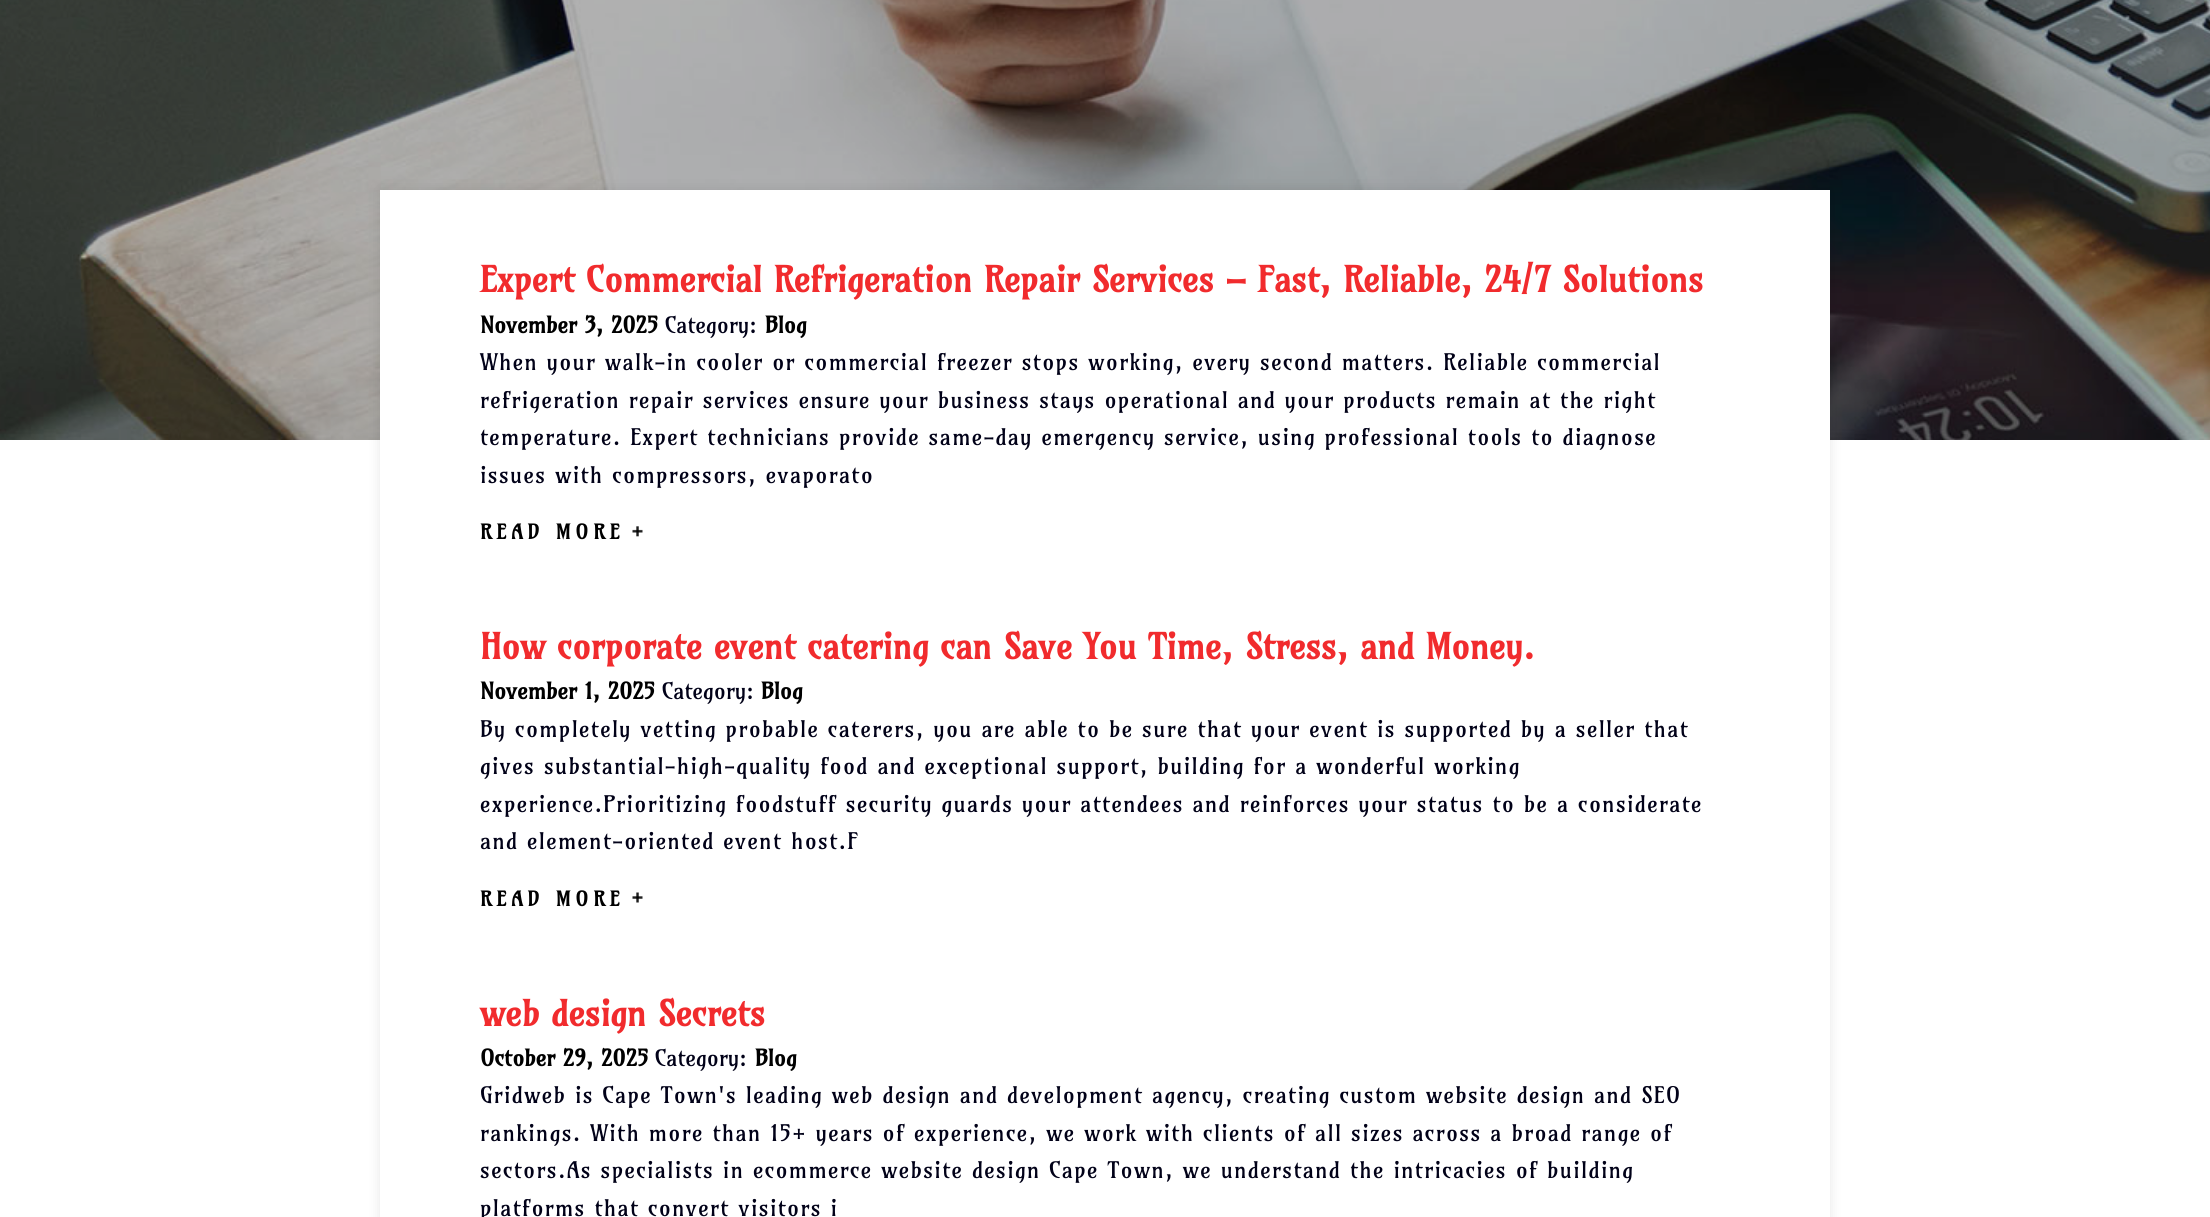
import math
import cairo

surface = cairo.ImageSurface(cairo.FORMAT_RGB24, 2210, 1217)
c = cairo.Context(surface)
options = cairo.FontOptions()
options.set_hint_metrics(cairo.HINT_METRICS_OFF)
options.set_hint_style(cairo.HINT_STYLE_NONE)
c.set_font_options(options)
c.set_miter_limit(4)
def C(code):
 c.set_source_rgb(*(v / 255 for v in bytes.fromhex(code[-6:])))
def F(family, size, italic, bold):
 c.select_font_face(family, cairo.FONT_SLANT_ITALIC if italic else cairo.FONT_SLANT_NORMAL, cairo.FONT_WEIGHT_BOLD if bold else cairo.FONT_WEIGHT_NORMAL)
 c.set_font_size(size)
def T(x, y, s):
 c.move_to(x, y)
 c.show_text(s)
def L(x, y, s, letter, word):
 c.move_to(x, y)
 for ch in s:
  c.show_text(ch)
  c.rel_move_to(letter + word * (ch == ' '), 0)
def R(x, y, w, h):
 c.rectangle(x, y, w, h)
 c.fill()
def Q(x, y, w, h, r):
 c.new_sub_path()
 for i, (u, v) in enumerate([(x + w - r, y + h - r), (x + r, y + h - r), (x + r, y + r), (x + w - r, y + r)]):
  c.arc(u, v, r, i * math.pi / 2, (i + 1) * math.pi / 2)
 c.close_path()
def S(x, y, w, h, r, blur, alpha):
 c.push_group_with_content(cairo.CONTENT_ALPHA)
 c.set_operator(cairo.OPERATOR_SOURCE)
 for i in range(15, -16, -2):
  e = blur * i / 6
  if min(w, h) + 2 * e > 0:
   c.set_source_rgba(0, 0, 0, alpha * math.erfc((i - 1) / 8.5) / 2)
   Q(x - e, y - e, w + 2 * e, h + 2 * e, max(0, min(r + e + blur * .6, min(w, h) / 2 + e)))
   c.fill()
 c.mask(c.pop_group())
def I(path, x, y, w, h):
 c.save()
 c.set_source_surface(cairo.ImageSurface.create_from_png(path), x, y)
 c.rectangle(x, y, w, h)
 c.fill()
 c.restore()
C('ffffff')
c.paint()
I('1.png',0,0,2210,440)
C('000000')
S(380,190,1450,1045,0,6,.1)
C('ffffff')
R(380,190,1450,1027)
F('Amarante',35,0,1)
C('f12b2d')
T(480,292,'Expert Commercial Refrigeration Repair Services – Fast, Reliable, 24/7 Solutions')
F('Amarante',22.5,0,1)
C('000000')
T(480,333,'November 3, 2025')
F('Amarante',22.5,0,0)
C('010118')
T(665,333,'Category:')
F('Amarante',22.5,0,1)
C('000000')
T(765,333,'Blog')
F('Amarante',22.5,0,0)
C('010118')
L(480,370,'When your walk-in cooler or commercial freezer stops working, every second matters. Reliable commercial',1.25,0)
L(480,408,'refrigeration repair services ensure your business stays operational and your products remain at the right',1.25,0)
L(480,445,'temperature. Expert technicians provide same-day emergency service, using professional tools to diagnose',1.25,0)
L(480,483,'issues with compressors, evaporato',1.25,0)
F('Amarante',20,0,1)
C('000000')
L(480,539,'READ MORE',5,0)
I('2.png',632,526,11,11)
F('Amarante',35,0,1)
C('f12b2d')
T(480,659,'How corporate event catering can Save You Time, Stress, and Money.')
F('Amarante',22.5,0,1)
C('000000')
T(480,699,'November 1, 2025')
F('Amarante',22.5,0,0)
C('010118')
T(662,699,'Category:')
F('Amarante',22.5,0,1)
C('000000')
T(761,699,'Blog')
F('Amarante',22.5,0,0)
C('010118')
L(480,737,'By completely vetting probable caterers, you are able to be sure that your event is supported by a seller that',1.25,0)
L(480,774,'gives substantial-high-quality food and exceptional support, building for a wonderful working',1.25,0)
L(480,812,'experience.Prioritizing foodstuff security guards your attendees and reinforces your status to be a considerate',1.25,0)
L(480,849,'and element-oriented event host.F',1.25,0)
F('Amarante',20,0,1)
C('000000')
L(480,906,'READ MORE',5,0)
I('3.png',632,892,11,11)
F('Amarante',35,0,1)
C('f12b2d')
T(480,1026,'web design Secrets')
F('Amarante',22.5,0,1)
C('000000')
T(480,1066,'October 29, 2025')
F('Amarante',22.5,0,0)
C('010118')
T(655,1066,'Category:')
F('Amarante',22.5,0,1)
C('000000')
T(755,1066,'Blog')
F('Amarante',22.5,0,0)
C('010118')
L(480,1103,'Gridweb is Cape Town\'s leading web design and development agency, creating custom website design and SEO',1.25,0)
L(480,1141,'rankings. With more than 15+ years of experience, we work with clients of all sizes across a broad range of',1.25,0)
L(480,1178,'sectors.As specialists in ecommerce website design Cape Town, we understand the intricacies of building',1.25,0)
L(480,1216,'platforms that convert visitors i',1.25,0)
surface.write_to_png('o.png')
